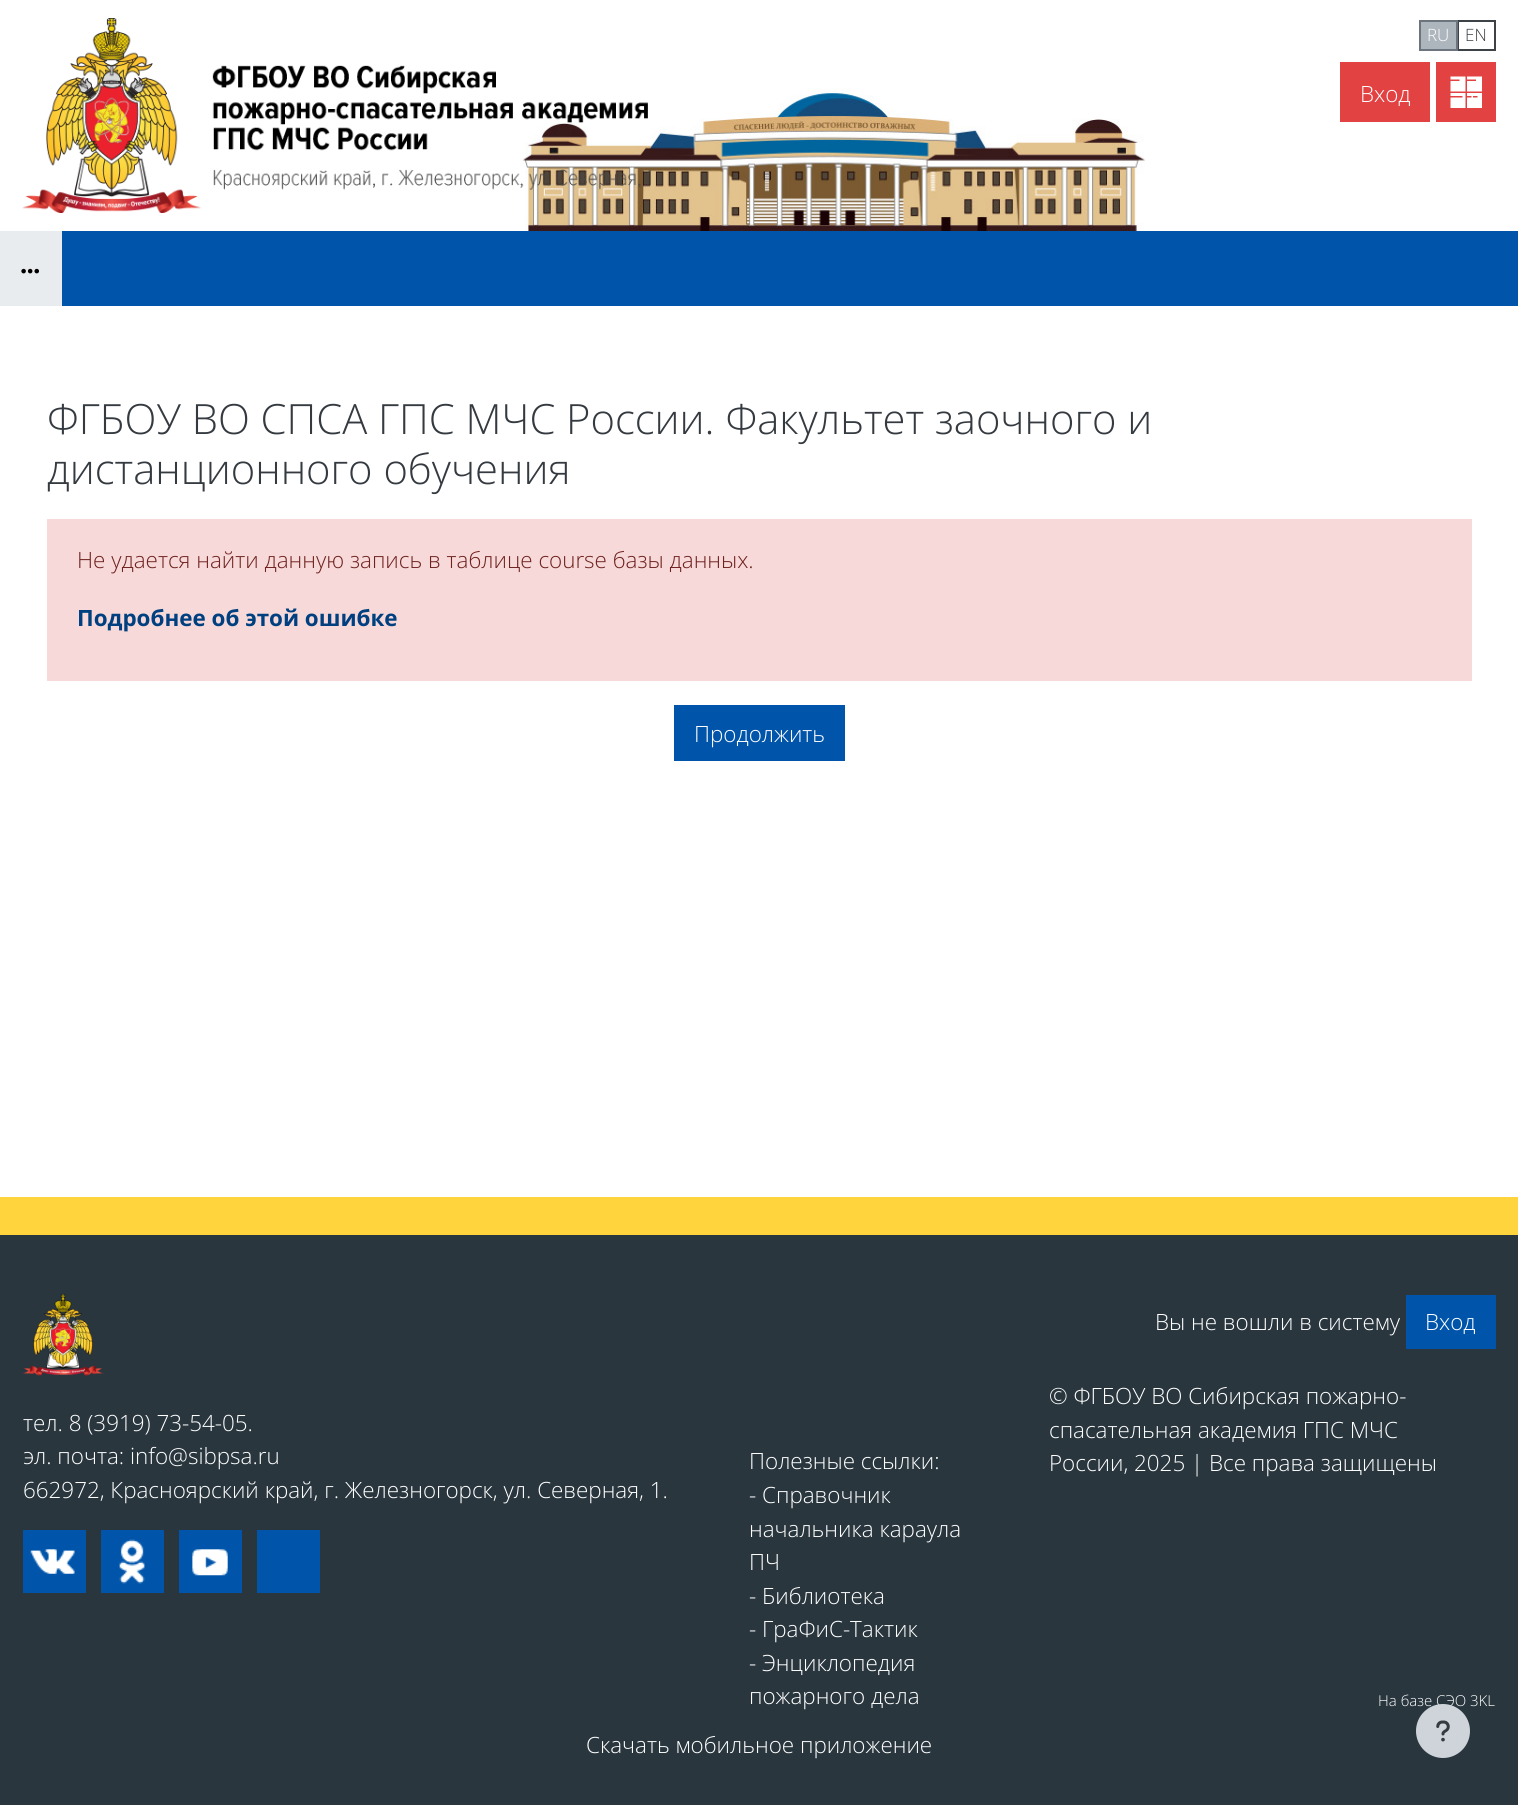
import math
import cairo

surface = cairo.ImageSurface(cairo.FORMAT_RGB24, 1518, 1805)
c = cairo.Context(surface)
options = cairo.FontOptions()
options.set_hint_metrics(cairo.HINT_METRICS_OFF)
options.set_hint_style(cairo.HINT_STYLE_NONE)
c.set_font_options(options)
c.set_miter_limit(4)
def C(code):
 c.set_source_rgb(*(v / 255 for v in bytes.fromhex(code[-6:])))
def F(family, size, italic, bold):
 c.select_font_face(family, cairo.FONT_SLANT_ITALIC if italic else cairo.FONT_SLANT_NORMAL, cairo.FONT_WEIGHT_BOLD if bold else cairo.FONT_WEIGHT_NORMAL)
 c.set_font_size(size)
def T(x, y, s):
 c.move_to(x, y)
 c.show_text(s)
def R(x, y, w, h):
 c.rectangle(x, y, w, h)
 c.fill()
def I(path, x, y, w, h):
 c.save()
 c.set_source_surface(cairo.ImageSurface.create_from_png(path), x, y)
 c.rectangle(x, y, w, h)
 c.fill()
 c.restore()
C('ffffff')
c.paint()
I('1.png',520,88,625,143)
I('2.png',22,18,629,195)
c.rectangle(1458,21,37,29)
C('3d4246')
c.stroke()
C('adb5bd')
c.rectangle(1420,21,37,29)
c.fill_preserve()
C('6c757d')
c.stroke()
F('Open Sans Light',17,0,0)
C('ffffff')
T(1427,41,'RU')
C('3d4246')
T(1465,41,'EN')
C('e34243')
R(1340,62,90,60)
F('Open Sans Light',22.4,0,0)
C('ffffff')
T(1360,102,'Вход')
C('e34243')
R(1436,62,60,60)
I('3.png',1450,76,32,32)
C('0055aa')
R(62,231,1456,75)
C('e9ecef')
R(0,231,62,75)
I('4.png',21,268,18,6)
F('Open Sans Light',41.7,0,0)
C('343a40')
T(47,434,'ФГБОУ ВО СПСА ГПС МЧС России. Факультет заочного и')
T(47,484,'дистанционного обучения')
C('f6d9d8')
R(47,519,1425,162)
F('Open Sans Light',22.4,0,0)
C('6e211e')
T(77,568,'Не удается найти данную запись в таблице course базы данных.')
F('Open Sans',22.4,0,1)
C('004080')
T(77,626,'Подробнее об этой ошибке')
C('0055aa')
R(674,705,171,56)
F('Open Sans Light',22.4,0,0)
C('ffffff')
T(694,742,'Продолжить')
C('ffd43d')
R(0,1197,1518,38)
C('29363e')
R(0,1235,1518,570)
I('5.png',22,1294,82,82)
C('ffffff')
T(23,1431,'тел. 8 (3919) 73-54-05.')
T(23,1464,'эл. почта: info@sibpsa.ru')
T(23,1498,'662972, Красноярский край, г. Железногорск, ул. Северная, 1.')
C('0055aa')
R(23,1530,63,63)
I('6.png',30,1549,45,25)
R(101,1530,63,63)
I('7.png',119,1539,26,45)
R(179,1530,63,63)
I('8.png',192,1549,36,27)
R(257,1530,63,63)
C('ffffff')
T(749,1469,'Полезные ссылки:')
T(749,1503,'- Справочник')
T(749,1537,'начальника караула')
T(749,1570,'ПЧ')
T(749,1604,'- Библиотека')
T(749,1637,'- ГраФиС-Тактик')
T(749,1671,'- Энциклопедия')
T(749,1704,'пожарного дела')
T(1155,1330,'Вы не вошли в систему')
C('0055aa')
R(1406,1295,90,54)
C('ffffff')
T(1425,1330,'Вход')
T(1049,1404,'© ФГБОУ ВО Сибирская пожарно-')
T(1049,1438,'спасательная академия ГПС МЧС')
T(1049,1471,'России, 2025 | Все права защищены')
F('Open Sans Light',15,0,0)
T(1378,1706,'На базе СЭО 3KL')
F('Open Sans Light',22.4,0,0)
T(586,1753,'Скачать мобильное приложение')
C('ced4da')
c.new_path()
c.arc(1443,1731,26,0,2 * math.pi)
c.fill_preserve()
c.stroke()
I('9.png',1436,1720,14,22)
surface.write_to_png('o.png')
